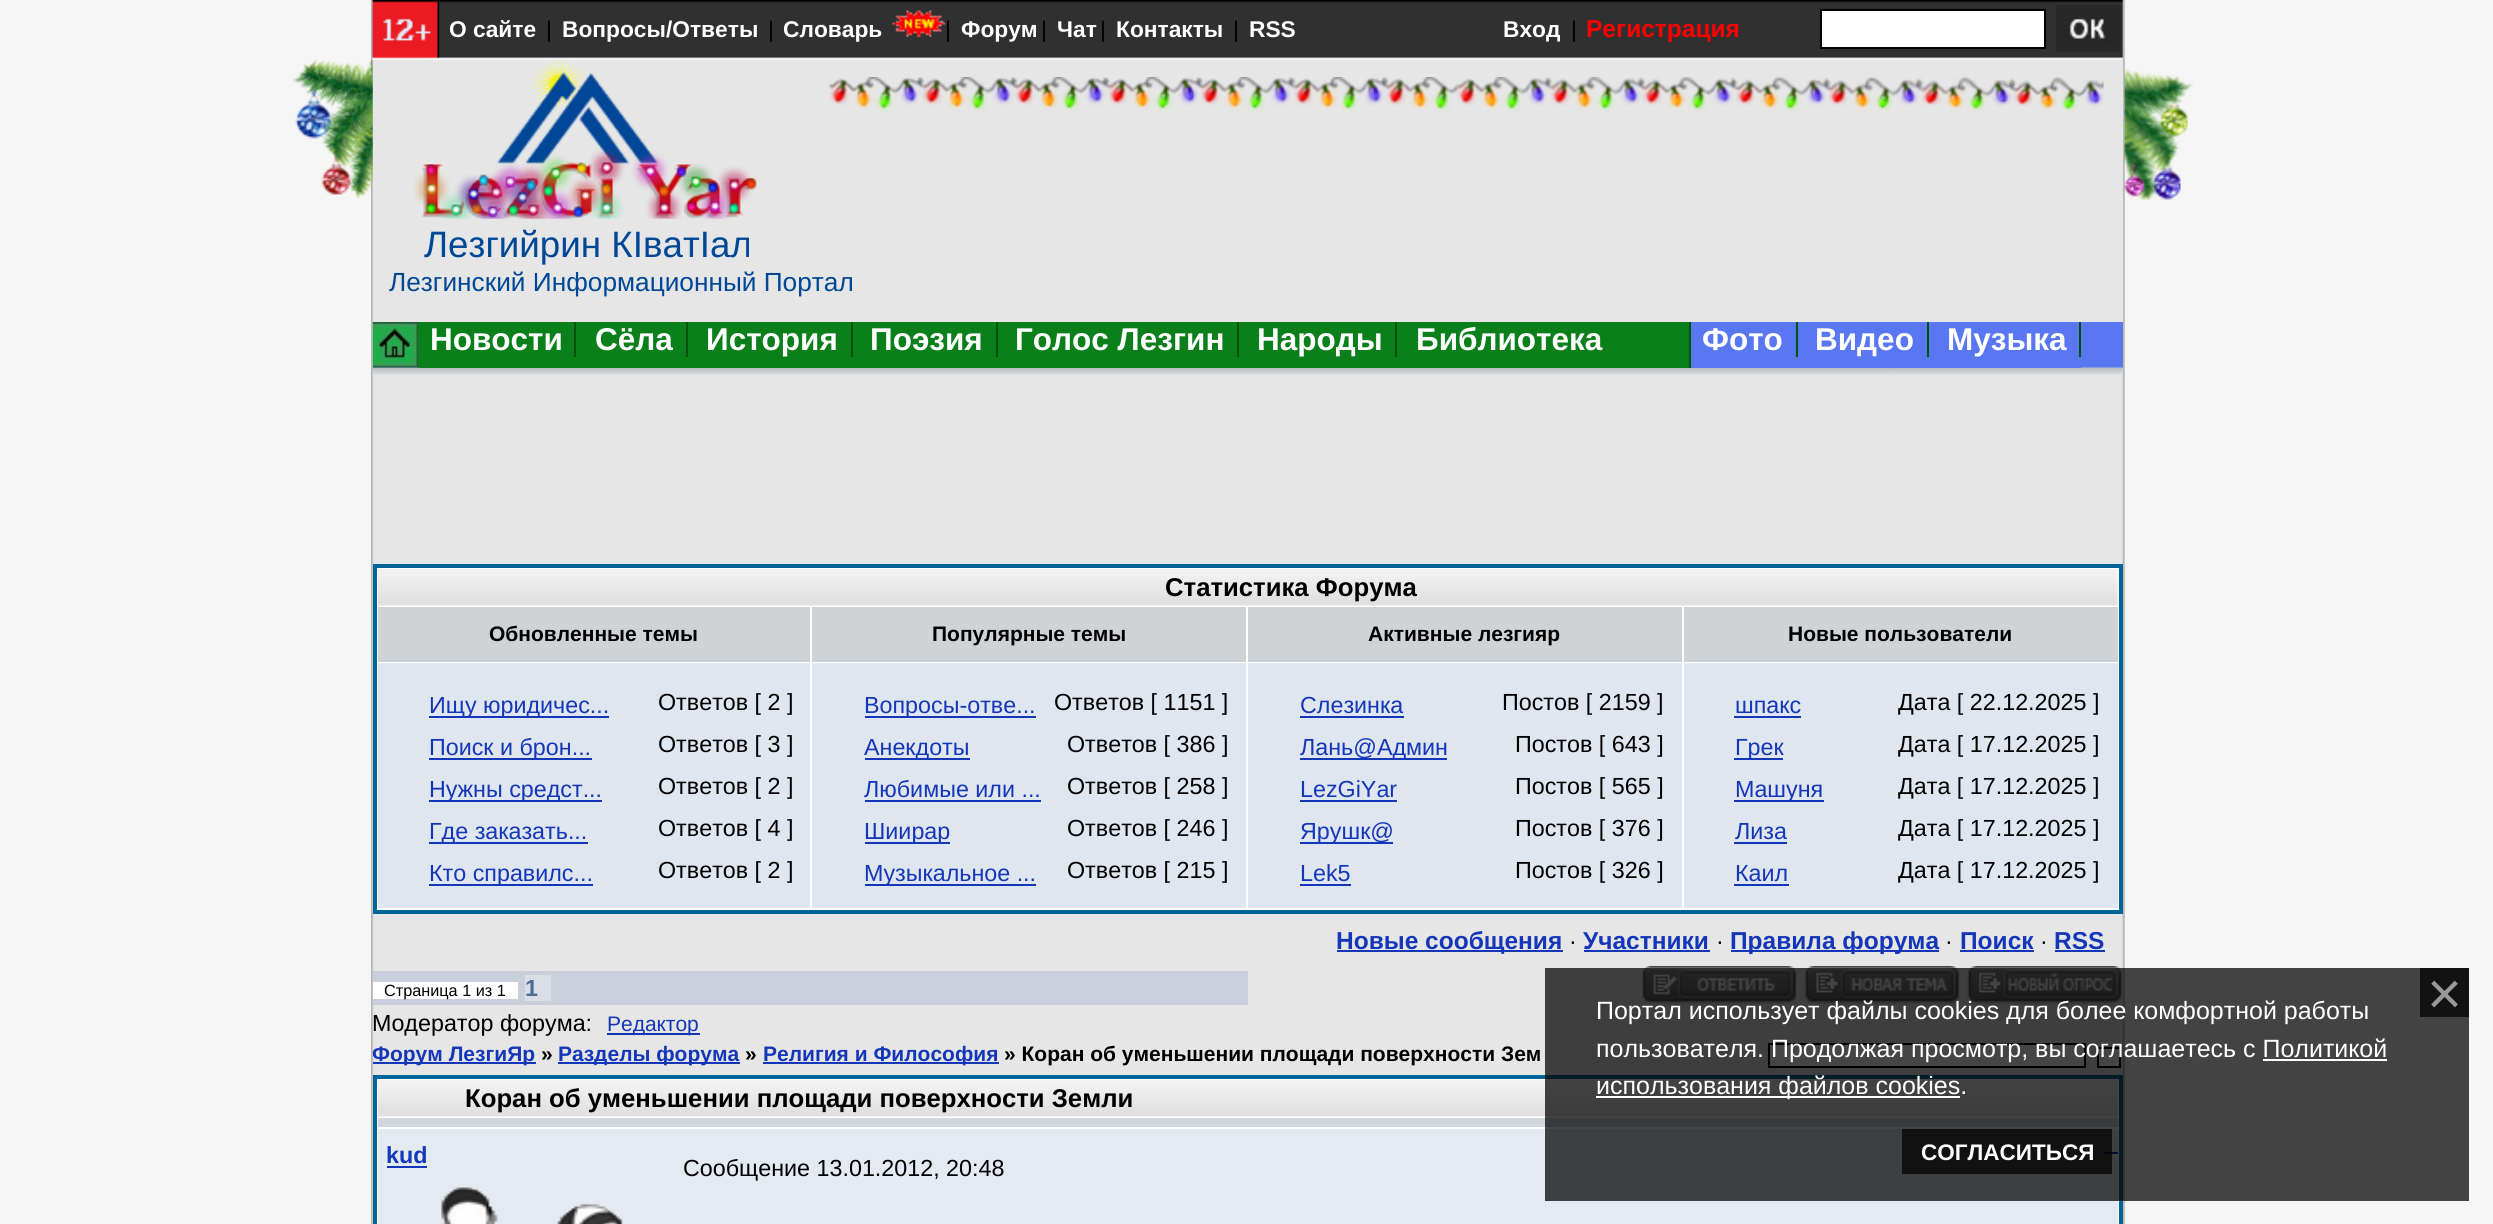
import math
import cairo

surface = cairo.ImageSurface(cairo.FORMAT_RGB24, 2493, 1224)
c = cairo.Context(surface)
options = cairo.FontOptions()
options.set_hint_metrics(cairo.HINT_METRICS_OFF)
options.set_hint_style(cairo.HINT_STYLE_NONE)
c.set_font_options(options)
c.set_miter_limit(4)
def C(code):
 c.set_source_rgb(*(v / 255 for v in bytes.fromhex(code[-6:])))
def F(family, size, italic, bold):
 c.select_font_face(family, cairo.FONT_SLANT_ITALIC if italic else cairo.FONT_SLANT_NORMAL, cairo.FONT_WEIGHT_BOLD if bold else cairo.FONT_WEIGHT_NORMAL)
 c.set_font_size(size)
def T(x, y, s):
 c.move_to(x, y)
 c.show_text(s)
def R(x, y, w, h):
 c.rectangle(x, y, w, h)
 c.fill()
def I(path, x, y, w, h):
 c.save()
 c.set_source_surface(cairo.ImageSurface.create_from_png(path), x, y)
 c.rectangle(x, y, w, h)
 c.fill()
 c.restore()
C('f6f6f6')
c.paint()
I('1.png',371,0,1753,1224)
C('c4c4c4')
R(2124,0,1,1224)
I('2.png',372,0,1751,60)
I('3.png',372,0,68,60)
F('Liberation Sans',22.75,0,1)
C('ffffff')
T(449,37,'О сайте')
F('Liberation Sans',22.75,0,0)
C('000000')
T(546,37,'|')
F('Liberation Sans',22.75,0,1)
C('ffffff')
T(562,37,'Вопросы/Ответы')
F('Liberation Sans',22.75,0,0)
C('000000')
T(768,37,'|')
F('Liberation Sans',22.75,0,1)
C('ffffff')
T(783,37,'Словарь')
I('4.png',892,10,53,27)
F('Liberation Sans',22.75,0,0)
C('000000')
T(945,37,'|')
F('Liberation Sans',22.75,0,1)
C('ffffff')
T(961,37,'Форум')
F('Liberation Sans',22.75,0,0)
C('000000')
T(1041,37,'|')
F('Liberation Sans',22.75,0,1)
C('ffffff')
T(1057,37,'Чат')
F('Liberation Sans',22.75,0,0)
C('000000')
T(1100,37,'|')
F('Liberation Sans',22.75,0,1)
C('ffffff')
T(1116,37,'Контакты')
F('Liberation Sans',22.75,0,0)
C('000000')
T(1233,37,'|')
F('Liberation Sans',22.75,0,1)
C('ffffff')
T(1249,37,'RSS')
T(1503,37,'Вход')
F('Liberation Sans',22.75,0,0)
C('000000')
T(1571,37,'|')
F('Liberation Sans',24.5,0,1)
C('fe0002')
T(1586,37,'Регистрация')
C('ffffff')
c.rectangle(1821,10,224,38)
c.fill_preserve()
C('000000')
c.stroke()
I('5.png',2056,5,65,48)
I('6.png',292,59,81,140)
C('e6e6e6')
R(373,60,1750,262)
I('7.png',829,77,1275,35)
I('8.png',2124,68,69,132)
I('9.png',421,59,336,160)
I('10.png',413,149,344,70)
F('Liberation Sans',36.75,0,0)
C('004897')
T(424,257,'Лезгийрин КIватIал')
F('Liberation Sans',26.25,0,0)
T(389,291,'Лезгинский Информационный Портал')
C('5977f1')
R(373,322,1750,46)
I('12.png',372,367,1751,9)
I('11.png',372,322,46,46)
C('0b7f1a')
R(418,322,1271,46)
C('02540c')
R(1689,322,2,46)
F('Liberation Sans',31.5,0,1)
C('ffffff')
T(430,350,'Новости')
C('02540c')
R(574,322,2,35)
C('ffffff')
T(595,350,'Сёла')
C('02540c')
R(686,322,2,35)
C('ffffff')
T(706,350,'История')
C('02540c')
R(851,322,2,35)
C('ffffff')
T(870,350,'Поэзия')
C('02540c')
R(996,322,2,35)
C('ffffff')
T(1015,350,'Голос Лезгин')
C('02540c')
R(1237,322,2,35)
C('ffffff')
T(1257,350,'Народы')
C('02540c')
R(1395,322,2,35)
C('ffffff')
T(1416,350,'Библиотека')
C('5977f1')
R(1691,367,390,1)
C('ffffff')
T(1702,350,'Фото')
C('02540c')
R(1796,322,2,35)
C('ffffff')
T(1815,350,'Видео')
C('02540c')
R(1927,322,2,35)
C('ffffff')
T(1947,350,'Музыка')
C('02540c')
R(2079,322,2,35)
C('ffffff')
c.rectangle(375,566,1746,346)
c.fill_preserve()
C('006699')
c.set_line_width(4)
c.stroke()
I('13.png',378,569,1740,37)
F('Liberation Sans',25.7,0,1)
C('000000')
T(1165,596,'Статистика Форума')
C('d0d3d6')
R(378,607,432,53)
C('c7d0d7')
R(378,660,432,2)
F('Liberation Sans',21,0,1)
C('000000')
T(489,641,'Обновленные темы')
C('d0d3d6')
R(812,607,434,53)
C('c7d0d7')
R(812,660,434,2)
C('000000')
T(932,641,'Популярные темы')
C('d0d3d6')
R(1248,607,434,53)
C('c7d0d7')
R(1248,660,434,2)
C('000000')
T(1368,641,'Активные лезгияр')
C('d0d3d6')
R(1684,607,434,53)
C('c7d0d7')
R(1684,660,434,2)
C('000000')
T(1788,641,'Новые пользователи')
C('dfe6ef')
R(378,663,432,245)
C('1437b9')
R(429,716,180,2)
F('Liberation Sans',23.3,0,0)
T(429,713,'Ищу юридичес...')
C('000000')
T(658,710,'Ответов [ 2 ]')
C('1437b9')
R(429,758,163,2)
T(429,755,'Поиск и брон...')
C('000000')
T(658,752,'Ответов [ 3 ]')
C('1437b9')
R(429,800,173,2)
T(429,797,'Нужны средст...')
C('000000')
T(658,794,'Ответов [ 2 ]')
C('1437b9')
R(429,842,159,2)
T(429,839,'Где заказать...')
C('000000')
T(658,836,'Ответов [ 4 ]')
C('1437b9')
R(429,884,164,2)
T(429,881,'Кто справилс...')
C('000000')
T(658,878,'Ответов [ 2 ]')
C('dfe6ef')
R(812,663,434,245)
C('1437b9')
R(865,716,171,2)
T(864,713,'Вопросы-отве...')
C('000000')
T(1054,710,'Ответов [ 1151 ]')
C('1437b9')
R(865,758,105,2)
T(864,755,'Анекдоты')
C('000000')
T(1067,752,'Ответов [ 386 ]')
C('1437b9')
T(864,797,'Любимые или ...')
R(865,800,176,2)
C('000000')
T(1067,794,'Ответов [ 258 ]')
C('1437b9')
R(865,842,85,2)
T(864,839,'Шиирар')
C('000000')
T(1067,836,'Ответов [ 246 ]')
C('1437b9')
R(865,884,171,2)
T(864,881,'Музыкальное ...')
C('000000')
T(1067,878,'Ответов [ 215 ]')
C('dfe6ef')
R(1248,663,434,245)
C('1437b9')
T(1300,713,'Слезинка')
R(1300,716,104,2)
C('000000')
T(1502,710,'Постов [ 2159 ]')
C('1437b9')
R(1300,758,147,2)
T(1300,755,'Лань@Админ')
C('000000')
T(1515,752,'Постов [ 643 ]')
C('1437b9')
T(1300,797,'LezGiYar')
R(1300,800,97,2)
C('000000')
T(1515,794,'Постов [ 565 ]')
C('1437b9')
R(1300,842,93,2)
T(1300,839,'Ярушк@')
C('000000')
T(1515,836,'Постов [ 376 ]')
C('1437b9')
T(1300,881,'Lek5')
R(1300,884,51,2)
C('000000')
T(1515,878,'Постов [ 326 ]')
C('dfe6ef')
R(1684,663,434,245)
C('1437b9')
T(1735,713,'шпакс')
R(1734,716,67,2)
C('000000')
T(1898,710,'Дата [ 22.12.2025 ]')
C('1437b9')
R(1734,758,49,2)
T(1735,755,'Грек')
C('000000')
T(1898,752,'Дата [ 17.12.2025 ]')
C('1437b9')
R(1734,800,90,2)
T(1735,797,'Машуня')
C('000000')
T(1898,794,'Дата [ 17.12.2025 ]')
C('1437b9')
T(1735,839,'Лиза')
R(1734,842,53,2)
C('000000')
T(1898,836,'Дата [ 17.12.2025 ]')
C('1437b9')
T(1735,881,'Каил')
R(1734,884,55,2)
C('000000')
T(1898,878,'Дата [ 17.12.2025 ]')
C('1437b9')
R(1337,950,226,2)
F('Liberation Sans',24.5,0,1)
T(1336,949,'Новые сообщения')
F('Liberation Sans',23.3,0,0)
C('000000')
T(1569,949,'·')
F('Liberation Sans',24.5,0,1)
C('1437b9')
T(1583,949,'Участники')
R(1584,950,126,2)
F('Liberation Sans',23.3,0,0)
C('000000')
T(1716,949,'·')
C('1437b9')
R(1731,950,208,2)
F('Liberation Sans',24.5,0,1)
T(1730,949,'Правила форума')
F('Liberation Sans',23.3,0,0)
C('000000')
T(1945,949,'·')
F('Liberation Sans',24.5,0,1)
C('1437b9')
T(1960,949,'Поиск')
R(1960,950,74,2)
F('Liberation Sans',23.3,0,0)
C('000000')
T(2040,949,'·')
F('Liberation Sans',24.5,0,1)
C('1437b9')
T(2054,949,'RSS')
R(2055,950,50,2)
C('c9d0db')
R(373,971,875,34)
C('ffffff')
R(373,982,145,17)
F('Liberation Sans',16.25,0,0)
C('000000')
T(384,996,'Страница 1 из 1')
C('dadfe7')
R(525,975,26,26)
F('Liberation Sans',23.3,0,1)
C('4d6d91')
T(525,996,'1')
I('14.png',1641,966,156,39)
I('15.png',1804,966,156,39)
I('16.png',1967,966,156,39)
F('Liberation Sans',23.3,0,0)
C('000000')
T(372,1031,'Модератор форума:')
C('1437b9')
R(607,1033,93,2)
F('Liberation Sans',21,0,0)
T(607,1031,'Редактор')
R(373,1062,163,2)
F('Liberation Sans',21,0,1)
T(372,1061,'Форум ЛезгиЯр')
C('000000')
T(541,1061,'»')
C('1437b9')
R(558,1062,182,2)
T(558,1061,'Разделы форума')
C('000000')
T(745,1061,'»')
C('1437b9')
R(763,1062,236,2)
T(763,1061,'Религия и Философия')
C('000000')
T(1004,1061,'» Коран об уменьшении площади поверхности Зем')
C('ffffff')
c.rectangle(1769,1044,316,23)
c.fill_preserve()
C('000000')
c.set_line_width(2)
c.stroke()
C('ffffff')
c.rectangle(2098,1048,22,19)
c.fill_preserve()
C('000000')
c.stroke()
C('ffffff')
c.rectangle(375,1077,1746,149)
c.fill_preserve()
C('006699')
c.set_line_width(4)
c.stroke()
I('13.png',378,1080,1740,37)
F('Liberation Sans',25.7,0,1)
C('000000')
T(465,1107,'Коран об уменьшении площади поверхности Земли')
C('d1d7dc')
R(378,1118,1740,9)
C('e4eaf2')
R(378,1129,1740,95)
F('Liberation Sans',23.3,0,1)
C('1437b9')
T(386,1163,'kud')
R(387,1166,40,2)
R(2104,1152,14,2)
F('Liberation Sans',23.3,0,0)
C('000000')
T(683,1176,'Сообщение 13.01.2012, 20:48')
I('17.png',441,1187,182,37)
c.set_source_rgba(0,0,0,0.73)
R(1545,968,924,233)
C('121212')
R(2420,968,49,49)
F('Liberation Sans',60,0,0)
C('999999')
T(2427,1014,'×')
c.set_source_rgba(0,0,0,0.73)
R(1902,1129,210,45)
F('Liberation Sans',22.5,0,1)
C('ffffff')
T(1921,1160,'СОГЛАСИТЬСЯ')
F('Liberation Sans',25,0,0)
T(1596,1019,'Портал использует файлы cookies для более комфортной работы')
T(1596,1057,'пользователя. Продолжая просмотр, вы соглашаетесь с Политикой')
R(1596,1096,364,2)
T(1596,1094,'использования файлов cookies.')
R(2263,1059,124,2)
surface.write_to_png('o.png')
